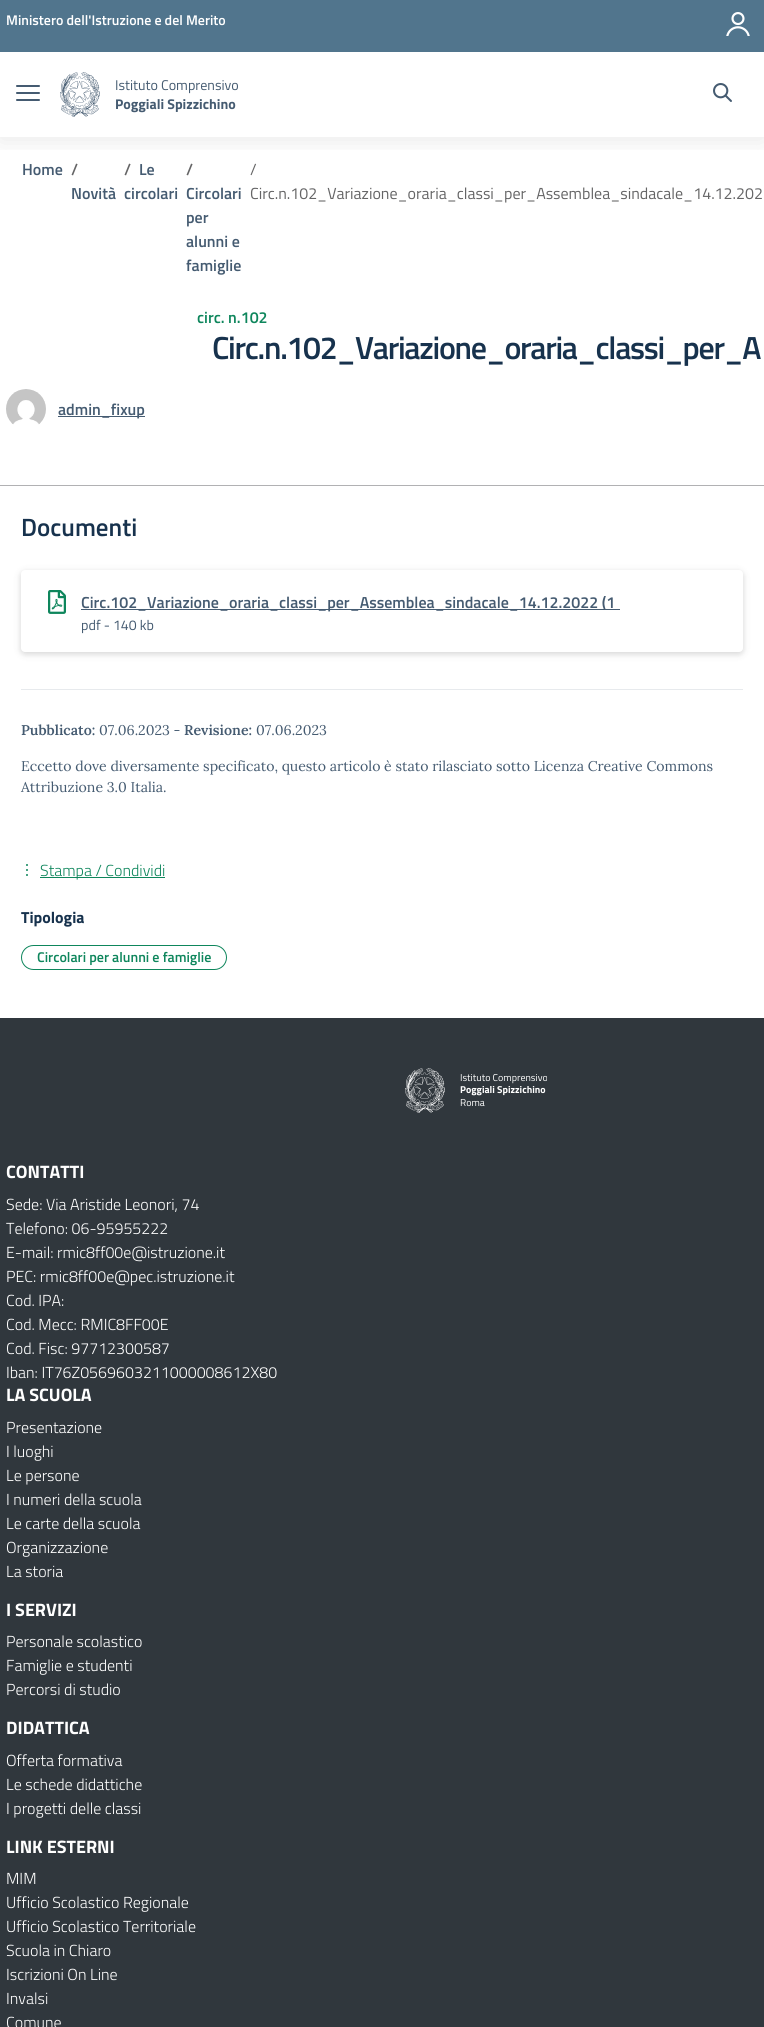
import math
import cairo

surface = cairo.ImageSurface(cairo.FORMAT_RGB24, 764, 2027)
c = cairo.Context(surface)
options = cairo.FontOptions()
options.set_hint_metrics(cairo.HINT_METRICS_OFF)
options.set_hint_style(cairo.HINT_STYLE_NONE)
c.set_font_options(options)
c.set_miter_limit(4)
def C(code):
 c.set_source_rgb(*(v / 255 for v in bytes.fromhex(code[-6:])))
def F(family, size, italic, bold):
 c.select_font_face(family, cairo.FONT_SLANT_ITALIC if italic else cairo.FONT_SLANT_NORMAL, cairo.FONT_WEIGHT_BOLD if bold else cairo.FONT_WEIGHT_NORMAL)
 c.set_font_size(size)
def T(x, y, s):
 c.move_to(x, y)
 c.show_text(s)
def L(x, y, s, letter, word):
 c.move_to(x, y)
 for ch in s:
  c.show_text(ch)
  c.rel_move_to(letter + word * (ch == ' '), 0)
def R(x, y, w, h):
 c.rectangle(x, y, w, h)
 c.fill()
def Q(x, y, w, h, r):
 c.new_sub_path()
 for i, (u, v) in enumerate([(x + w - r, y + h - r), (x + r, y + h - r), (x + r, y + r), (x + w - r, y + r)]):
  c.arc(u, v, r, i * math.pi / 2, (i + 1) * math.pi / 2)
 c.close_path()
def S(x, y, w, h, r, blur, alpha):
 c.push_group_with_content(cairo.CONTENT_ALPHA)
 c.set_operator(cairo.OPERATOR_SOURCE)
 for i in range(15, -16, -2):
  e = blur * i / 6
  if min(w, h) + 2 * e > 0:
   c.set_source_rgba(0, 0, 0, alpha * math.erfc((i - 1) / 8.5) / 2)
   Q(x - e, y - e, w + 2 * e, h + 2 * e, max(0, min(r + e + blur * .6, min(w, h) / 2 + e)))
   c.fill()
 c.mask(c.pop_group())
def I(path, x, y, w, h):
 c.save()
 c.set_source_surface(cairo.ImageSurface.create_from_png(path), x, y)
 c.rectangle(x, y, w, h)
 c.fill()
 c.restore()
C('ffffff')
c.paint()
c.save()
c.rectangle(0,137,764,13)
c.clip()
C('000000')
S(0,2,764,137,0,12.5,.1)
c.restore()
C('51758d')
R(0,0,764,52)
F('Titillium Web SemiBold',14,0,0)
C('ffffff')
T(6,25,'Ministero dell\'Istruzione e del Merito')
I('1.png',726,12,24,24)
C('455b71')
Q(16,92,24,2,1)
c.fill()
Q(16,85,24,2,1)
c.fill()
Q(16,99,24,2,1)
c.fill()
I('2.png',60,72,40,45)
F('Titillium Web',14.1,0,0)
T(115,90,'Istituto Comprensivo')
F('Titillium Web',14.1,0,1)
T(115,109,'Poggiali Spizzichino')
I('3.png',713,83,19,19)
F('Titillium Web SemiBold',16,0,0)
T(22,175,'Home')
C('656566')
T(71,175,'/')
C('455b71')
T(71,199,'Novità')
C('656566')
T(124,175,'/')
C('455b71')
T(139,175,'Le')
T(124,199,'circolari')
C('656566')
T(186,175,'/')
C('455b71')
T(186,199,'Circolari')
T(186,223,'per')
T(186,247,'alunni e')
T(186,271,'famiglie')
F('Titillium Web',16,0,0)
C('656566')
T(250,175,'/')
T(250,199,'Circ.n.102_Variazione_oraria_classi_per_Assemblea_sindacale_14.12.202')
F('Titillium Web SemiBold',16,0,0)
C('0e865c')
T(197,323,'circ. n.102')
F('Titillium Web SemiBold',32,0,0)
C('17324d')
L(212,359,'Circ.n.102_Variazione_oraria_classi_per_A',-1.3,0)
I('4.png',6,389,40,36)
C('455b71')
R(58,416,87,1)
F('Titillium Web SemiBold',16,0,0)
T(58,415,'admin_fixup')
C('b1b1b3')
R(0,485,764,1)
F('Titillium Web SemiBold',25,0,0)
C('17324d')
T(21,536,'Documenti')
C('000000')
S(21,572,722,82,4,3.5,.17)
C('ffffff')
Q(21,570,722,82,4)
c.fill()
I('5.png',48,590,18,24)
C('455b71')
R(81,609,539,1)
F('Titillium Web SemiBold',16,0,0)
T(81,608,'Circ.102_Variazione_oraria_classi_per_Assemblea_sindacale_14.12.2022 (1')
F('Titillium Web',14.1,0,0)
T(81,630,'pdf - 140 kb')
C('e7eaed')
R(21,689,722,1)
F('Lora SemiBold',14.1,0,0)
C('455b71')
T(21,735,'Pubblicato:')
F('Lora',14.1,0,0)
T(99,735,'07.06.2023 -')
F('Lora SemiBold',14.1,0,0)
T(184,735,'Revisione:')
F('Lora',14.1,0,0)
T(256,735,'07.06.2023')
T(21,771,'Eccetto dove diversamente specificato, questo articolo è stato rilasciato sotto Licenza Creative Commons')
T(21,792,'Attribuzione 3.0 Italia.')
I('6.png',26,864,2,12)
C('0e865c')
R(40,877,125,1)
F('Titillium Web Light',16,0,0)
T(40,876,'Stampa / Condividi')
F('Titillium Web',16,0,1)
C('17324d')
T(21,923,'Tipologia')
Q(21.5,945.5,205,24,12)
C('0e865c')
c.set_line_width(1)
c.stroke()
F('Titillium Web SemiBold',14.1,0,0)
T(37,962,'Circolari per alunni e famiglie')
C('30373d')
R(0,1018,764,1009)
I('7.png',405,1068,40,45)
F('Titillium Web',10,0,0)
C('ffffff')
T(460,1081,'Istituto Comprensivo')
F('Titillium Web',10,0,1)
T(460,1093,'Poggiali Spizzichino')
F('Titillium Web',10,0,0)
T(460,1106,'Roma')
F('Titillium Web',18,0,1)
T(6,1178,'CONTATTI')
F('Titillium Web Light',16,0,0)
T(6,1210,'Sede: Via Aristide Leonori, 74')
T(6,1234,'Telefono: 06-95955222')
T(6,1258,'E-mail: rmic8ff00e@istruzione.it')
T(6,1282,'PEC: rmic8ff00e@pec.istruzione.it')
T(6,1306,'Cod. IPA:')
T(6,1330,'Cod. Mecc: RMIC8FF00E')
T(6,1354,'Cod. Fisc: 97712300587')
T(6,1378,'Iban: IT76Z0569603211000008612X80')
F('Titillium Web',18,0,1)
T(6,1401,'LA SCUOLA')
F('Titillium Web Light',16,0,0)
T(6,1433,'Presentazione')
T(6,1457,'I luoghi')
T(6,1481,'Le persone')
T(6,1505,'I numeri della scuola')
T(6,1529,'Le carte della scuola')
T(6,1553,'Organizzazione')
T(6,1577,'La storia')
F('Titillium Web',18,0,1)
T(6,1616,'I SERVIZI')
F('Titillium Web Light',16,0,0)
T(6,1647,'Personale scolastico')
T(6,1671,'Famiglie e studenti')
T(6,1695,'Percorsi di studio')
F('Titillium Web',18,0,1)
T(6,1734,'DIDATTICA')
F('Titillium Web Light',16,0,0)
T(6,1766,'Offerta formativa')
T(6,1790,'Le schede didattiche')
T(6,1814,'I progetti delle classi')
F('Titillium Web',18,0,1)
T(6,1853,'LINK ESTERNI')
F('Titillium Web Light',16,0,0)
T(6,1884,'MIM')
T(6,1908,'Ufficio Scolastico Regionale')
T(6,1932,'Ufficio Scolastico Territoriale')
T(6,1956,'Scuola in Chiaro')
T(6,1980,'Iscrizioni On Line')
T(6,2004,'Invalsi')
T(6,2028,'Comune')
surface.write_to_png('o.png')
